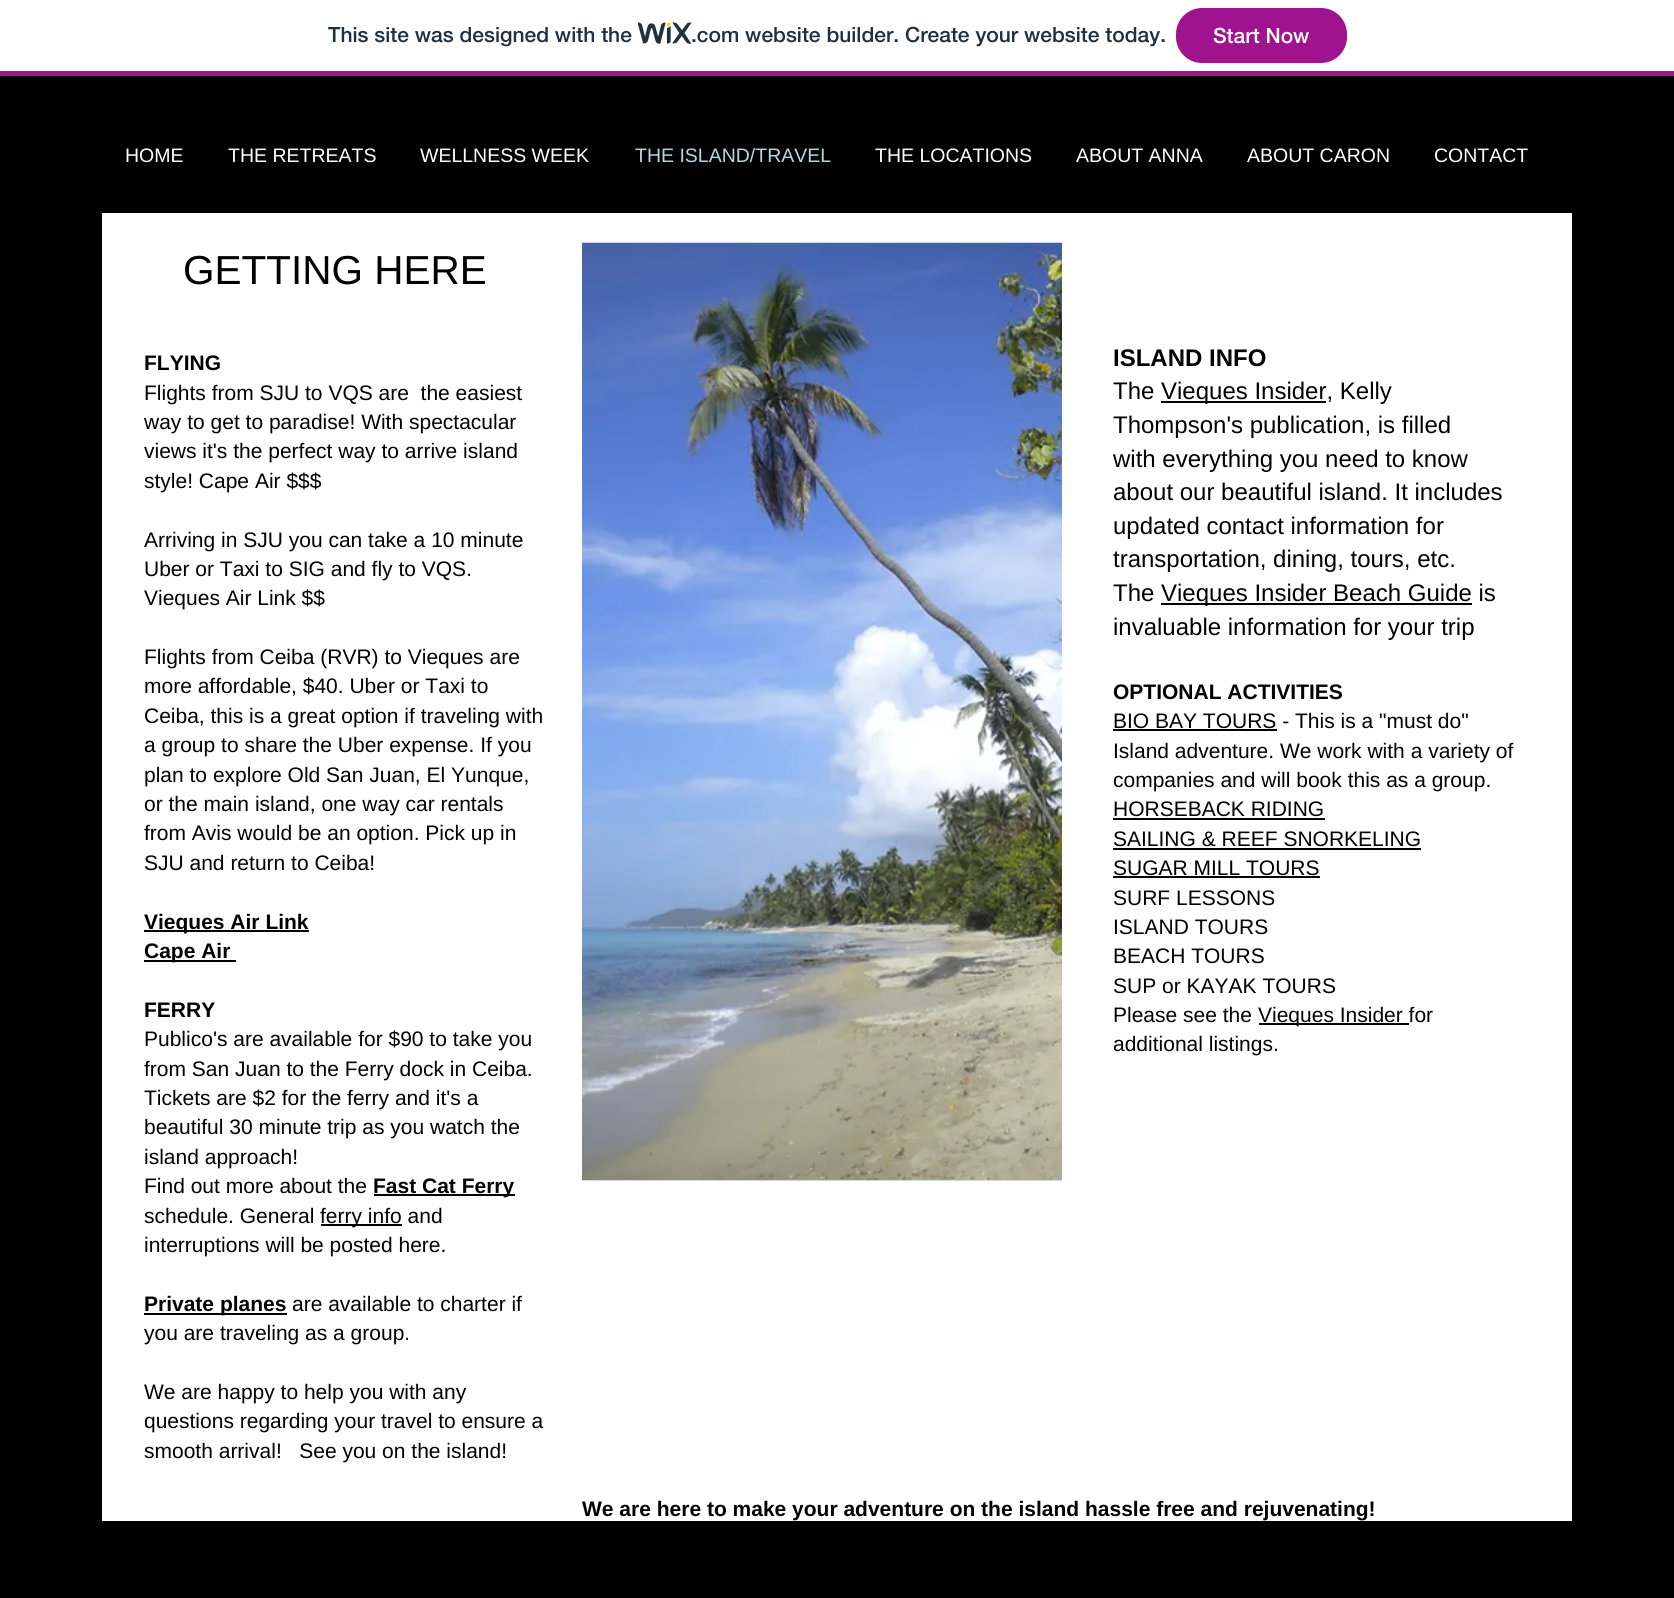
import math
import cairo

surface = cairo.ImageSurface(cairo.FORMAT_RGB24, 1674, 1598)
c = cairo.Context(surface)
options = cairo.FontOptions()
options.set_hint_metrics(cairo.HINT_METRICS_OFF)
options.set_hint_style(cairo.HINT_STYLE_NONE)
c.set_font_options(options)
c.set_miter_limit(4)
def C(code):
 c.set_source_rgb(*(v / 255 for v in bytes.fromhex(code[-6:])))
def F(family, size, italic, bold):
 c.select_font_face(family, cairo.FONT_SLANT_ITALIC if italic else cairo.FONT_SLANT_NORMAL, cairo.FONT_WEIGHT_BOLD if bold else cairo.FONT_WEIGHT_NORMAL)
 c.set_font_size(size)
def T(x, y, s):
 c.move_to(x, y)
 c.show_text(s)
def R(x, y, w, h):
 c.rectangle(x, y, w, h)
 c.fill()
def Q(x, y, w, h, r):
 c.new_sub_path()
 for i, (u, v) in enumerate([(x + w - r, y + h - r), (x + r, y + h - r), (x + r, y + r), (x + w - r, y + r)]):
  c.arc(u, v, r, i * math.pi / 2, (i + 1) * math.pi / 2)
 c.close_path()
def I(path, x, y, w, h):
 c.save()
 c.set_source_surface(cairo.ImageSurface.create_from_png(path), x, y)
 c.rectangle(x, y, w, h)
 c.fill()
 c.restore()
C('000000')
c.paint()
C('ffffff')
R(0,0,1674,71)
C('a0138e')
R(0,71,1674,5)
F('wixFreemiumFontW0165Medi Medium',21,0,0)
C('20303c')
T(328,42,'This site was designed with the')
I('1.png',638,22,54,22)
T(691,42,'.com website builder. Create your website today.')
C('a0138e')
Q(1177,9,169,53,25)
c.fill_preserve()
c.stroke()
C('ffffff')
T(1213,43,'Start Now')
F('Liberation Sans',19.5,0,0)
T(125,162,'HOME')
T(228,162,'THE RETREATS')
T(420,162,'WELLNESS WEEK')
C('b8d6dc')
T(635,162,'THE ISLAND/TRAVEL')
C('ffffff')
T(875,162,'THE LOCATIONS')
T(1076,162,'ABOUT ANNA')
T(1247,162,'ABOUT CARON')
T(1434,162,'CONTACT')
R(102,213,1470,1308)
F('Liberation Sans',40.5,0,0)
C('000000')
T(183,284,'GETTING HERE')
C('d8d8d8')
R(582,1180,480,1)
I('2.png',582,242,480,938)
F('Liberation Sans',21,0,1)
C('000000')
T(144,370,'FLYING')
F('Liberation Sans',21,0,0)
T(144,400,'Flights from SJU to VQS are  the easiest')
T(144,429,'way to get to paradise! With spectacular')
T(144,458,'views it\'s the perfect way to arrive island')
T(144,488,'style! Cape Air $$$')
T(144,547,'Arriving in SJU you can take a 10 minute')
T(144,576,'Uber or Taxi to SIG and fly to VQS.')
T(144,605,'Vieques Air Link $$')
T(144,664,'Flights from Ceiba (RVR) to Vieques are')
T(144,693,'more affordable, $40. Uber or Taxi to')
T(144,723,'Ceiba, this is a great option if traveling with')
T(144,752,'a group to share the Uber expense. If you')
T(144,782,'plan to explore Old San Juan, El Yunque,')
T(144,811,'or the main island, one way car rentals')
T(144,840,'from Avis would be an option. Pick up in')
T(144,870,'SJU and return to Ceiba!')
R(144,930,165,2)
F('Liberation Sans',21,0,1)
T(144,929,'Vieques Air Link')
R(144,960,92,2)
T(144,958,'Cape Air')
T(144,1017,'FERRY')
F('Liberation Sans',21,0,0)
T(144,1046,'Publico\'s are available for $90 to take you')
T(144,1076,'from San Juan to the Ferry dock in Ceiba.')
T(144,1105,'Tickets are $2 for the ferry and it\'s a')
T(144,1134,'beautiful 30 minute trip as you watch the')
T(144,1164,'island approach!')
T(144,1193,'Find out more about the')
R(374,1194,141,2)
F('Liberation Sans',21,0,1)
T(373,1193,'Fast Cat Ferry')
F('Liberation Sans',21,0,0)
T(144,1223,'schedule. General')
R(321,1224,81,2)
T(320,1223,'ferry info and')
T(144,1252,'interruptions will be posted here.')
R(144,1313,143,2)
F('Liberation Sans',21,0,1)
T(144,1311,'Private planes')
F('Liberation Sans',21,0,0)
T(292,1311,'are available to charter if')
T(144,1340,'you are traveling as a group.')
T(144,1399,'We are happy to help you with any')
T(144,1428,'questions regarding your travel to ensure a')
T(144,1458,'smooth arrival!   See you on the island!')
F('Liberation Sans',24,0,1)
T(1113,366,'ISLAND INFO')
F('Liberation Sans',24,0,0)
T(1113,399,'The')
R(1161,401,165,2)
T(1161,399,'Vieques Insider, Kelly')
T(1113,433,'Thompson\'s publication, is filled')
T(1113,467,'with everything you need to know')
T(1113,500,'about our beautiful island. It includes')
T(1113,534,'updated contact information for')
T(1113,567,'transportation, dining, tours, etc.')
T(1113,601,'The')
R(1161,603,311,2)
T(1161,601,'Vieques Insider Beach Guide is')
T(1113,635,'invaluable information for your trip')
F('Liberation Sans',21,0,1)
T(1113,699,'OPTIONAL ACTIVITIES')
F('Liberation Sans',21,0,0)
T(1113,728,'BIO BAY TOURS - This is a "must do"')
R(1113,729,164,2)
T(1113,758,'Island adventure. We work with a variety of')
T(1113,787,'companies and will book this as a group.')
T(1113,816,'HORSEBACK RIDING')
R(1113,818,212,2)
T(1113,846,'SAILING & REEF SNORKELING')
R(1113,848,308,2)
T(1113,875,'SUGAR MILL TOURS')
R(1113,876,207,2)
T(1113,905,'SURF LESSONS')
T(1113,934,'ISLAND TOURS')
T(1113,963,'BEACH TOURS')
T(1113,993,'SUP or KAYAK TOURS')
T(1113,1022,'Please see the')
R(1259,1023,150,2)
T(1258,1022,'Vieques Insider for')
T(1113,1051,'additional listings.')
F('Liberation Sans',21,0,1)
T(582,1516,'We are here to make your adventure on the island hassle free and rejuvenating!')
surface.write_to_png('o.png')
